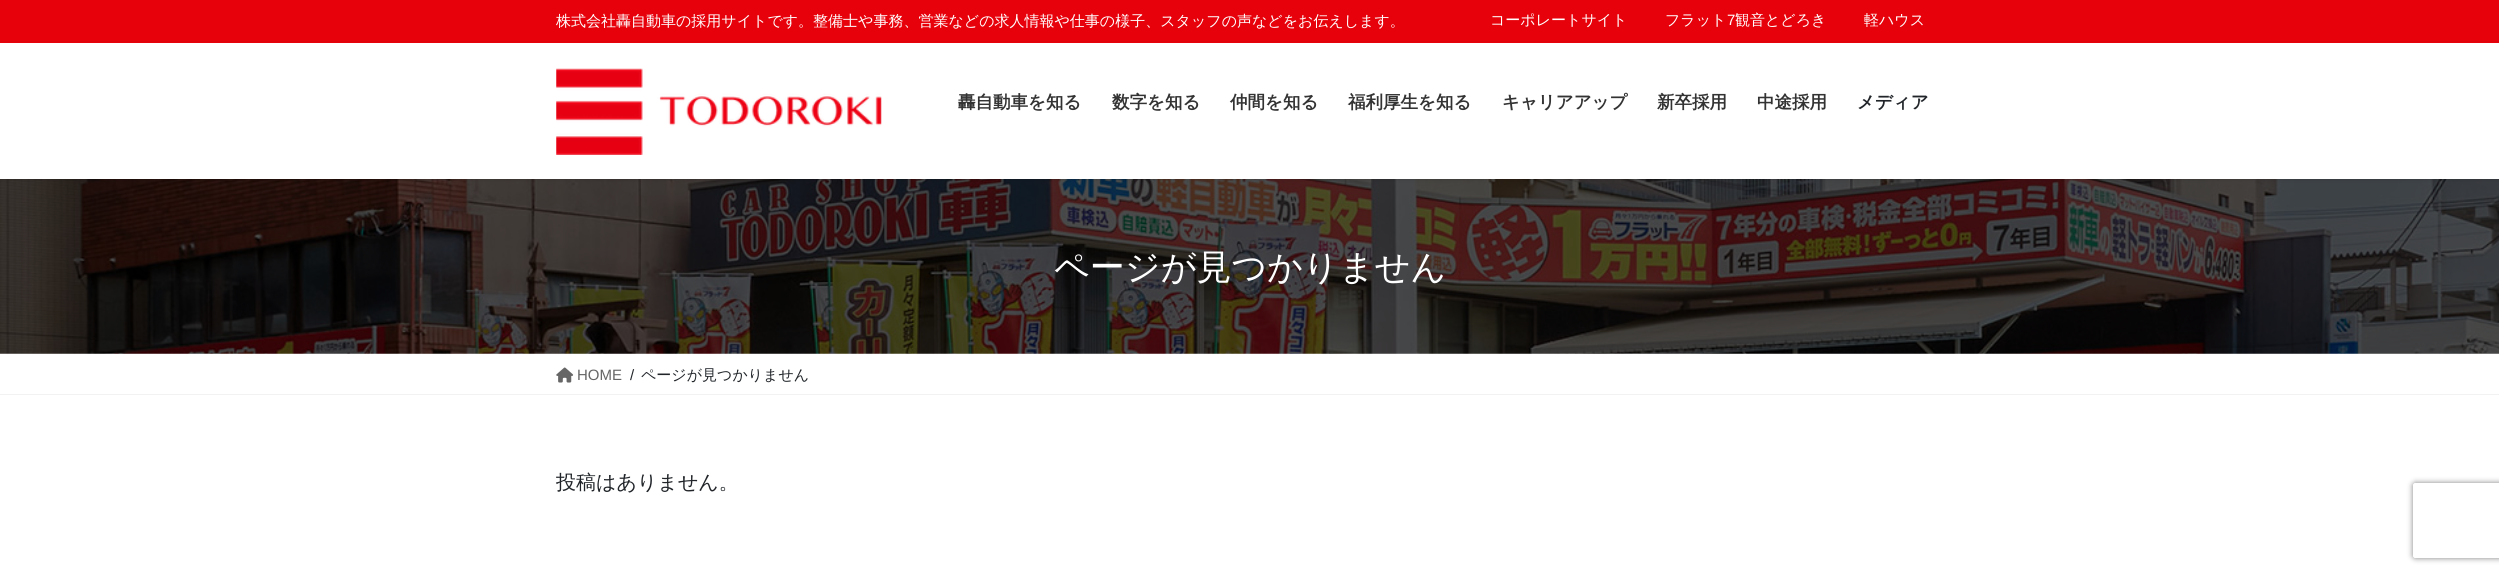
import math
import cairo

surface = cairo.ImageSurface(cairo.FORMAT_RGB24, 2499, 574)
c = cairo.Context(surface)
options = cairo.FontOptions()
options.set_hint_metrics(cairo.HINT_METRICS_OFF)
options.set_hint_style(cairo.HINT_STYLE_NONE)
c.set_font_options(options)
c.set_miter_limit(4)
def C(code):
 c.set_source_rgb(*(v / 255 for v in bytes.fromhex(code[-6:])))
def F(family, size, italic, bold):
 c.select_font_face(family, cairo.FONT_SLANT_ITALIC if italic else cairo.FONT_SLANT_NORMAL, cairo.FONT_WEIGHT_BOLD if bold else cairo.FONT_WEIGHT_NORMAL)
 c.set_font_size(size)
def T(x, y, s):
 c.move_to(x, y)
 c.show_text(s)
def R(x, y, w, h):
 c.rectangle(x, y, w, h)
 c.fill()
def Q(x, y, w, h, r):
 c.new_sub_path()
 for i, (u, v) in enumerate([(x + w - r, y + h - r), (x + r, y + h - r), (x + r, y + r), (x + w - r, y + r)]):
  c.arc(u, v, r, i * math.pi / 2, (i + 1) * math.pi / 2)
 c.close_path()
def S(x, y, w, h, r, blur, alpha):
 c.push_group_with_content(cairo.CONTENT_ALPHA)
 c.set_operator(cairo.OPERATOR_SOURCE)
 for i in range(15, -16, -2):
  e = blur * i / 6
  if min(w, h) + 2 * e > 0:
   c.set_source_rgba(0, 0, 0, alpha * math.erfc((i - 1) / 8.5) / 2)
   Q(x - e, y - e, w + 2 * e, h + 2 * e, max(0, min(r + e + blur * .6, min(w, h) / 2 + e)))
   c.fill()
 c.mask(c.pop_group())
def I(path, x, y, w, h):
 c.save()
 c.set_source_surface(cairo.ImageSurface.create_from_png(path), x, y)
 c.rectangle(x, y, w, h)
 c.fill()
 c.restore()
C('ffffff')
c.paint()
I('2.png',0,179,2499,175)
C('000000')
S(0,-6,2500,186,0,2,.1)
C('ffffff')
R(0,43,2499,136)
C('e7020b')
R(0,0,2499,43)
C('de020b')
R(0,41,2499,1)
F('WenQuanYi Zen Hei Medium',15,0,0)
C('ffffff')
T(556,26,'株式会社轟自動車の採用サイトです。整備士や事務、営業などの求人情報や仕事の様子、スタッフの声などをお伝えします。')
T(1490,25,'コーポレートサイト')
T(1665,25,'フラット')
F('Liberation Sans',15,0,0)
T(1727,25,'7')
F('WenQuanYi Zen Hei Medium',15,0,0)
T(1735,25,'観音とどろき')
T(1864,25,'軽ハウス')
I('1.png',556,68,326,87)
F('WenQuanYi Zen Hei',17.5,0,1)
C('333333')
T(958,108,'轟自動車を知る')
T(1112,108,'数字を知る')
T(1230,108,'仲間を知る')
T(1348,108,'福利厚生を知る')
T(1502,108,'キャリアアップ')
T(1657,108,'新卒採用')
T(1757,108,'中途採用')
C('212529')
T(1857,108,'メディア')
F('WenQuanYi Zen Hei Medium',35,0,0)
C('ffffff')
T(1054,279,'ページが見つかりません')
C('f2f2f2')
R(0,394,2499,1)
I('3.png',556,367,18,16)
F('Liberation Sans',15,0,0)
C('666666')
T(577,380,'HOME')
C('212529')
T(630,380,'/')
F('WenQuanYi Zen Hei Medium',15,0,0)
T(641,380,'ページが見つかりません')
F('WenQuanYi Zen Hei Medium',20,0,0)
T(556,489,'投稿はありません。')
c.save()
c.set_fill_rule(cairo.FILL_RULE_EVEN_ODD)
c.new_path()
c.move_to(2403,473)
c.line_to(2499,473)
c.line_to(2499,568)
c.line_to(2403,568)
c.close_path()
c.move_to(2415.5,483)
c.line_to(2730.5,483)
c.curve_to(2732,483,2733,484,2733,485.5)
c.line_to(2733,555.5)
c.curve_to(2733,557,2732,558,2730.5,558)
c.line_to(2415.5,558)
c.curve_to(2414,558,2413,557,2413,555.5)
c.line_to(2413,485.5)
c.curve_to(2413,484,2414,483,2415.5,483)
c.close_path()
c.clip()
C('808080')
S(2413,483,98,75,2.5,3,1)
c.restore()
surface.write_to_png('o.png')
